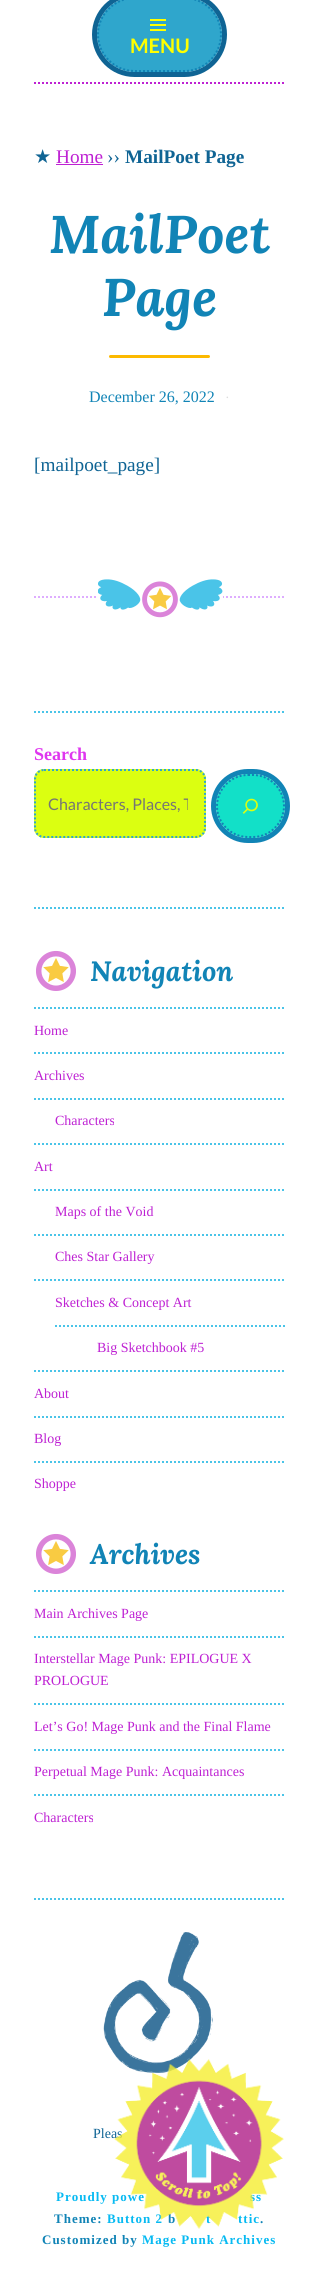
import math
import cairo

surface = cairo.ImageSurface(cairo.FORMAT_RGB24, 319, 2284)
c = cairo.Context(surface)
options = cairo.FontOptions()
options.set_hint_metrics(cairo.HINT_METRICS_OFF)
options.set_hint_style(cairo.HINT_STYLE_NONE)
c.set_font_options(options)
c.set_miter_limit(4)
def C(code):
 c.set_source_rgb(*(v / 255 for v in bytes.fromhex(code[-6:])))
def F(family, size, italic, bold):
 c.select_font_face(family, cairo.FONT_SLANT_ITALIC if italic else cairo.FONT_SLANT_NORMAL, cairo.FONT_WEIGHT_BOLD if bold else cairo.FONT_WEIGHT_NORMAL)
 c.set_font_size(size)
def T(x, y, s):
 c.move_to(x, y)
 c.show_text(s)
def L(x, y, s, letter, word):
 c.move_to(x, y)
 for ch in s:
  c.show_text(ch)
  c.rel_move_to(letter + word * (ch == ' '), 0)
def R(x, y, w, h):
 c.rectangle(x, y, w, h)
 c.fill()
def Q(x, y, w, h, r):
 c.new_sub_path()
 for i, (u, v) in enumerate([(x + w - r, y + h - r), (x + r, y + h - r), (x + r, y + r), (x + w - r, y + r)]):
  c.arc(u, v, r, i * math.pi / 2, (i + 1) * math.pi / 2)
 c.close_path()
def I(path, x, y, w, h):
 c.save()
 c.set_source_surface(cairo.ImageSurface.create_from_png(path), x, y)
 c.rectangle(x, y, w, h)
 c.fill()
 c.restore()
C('ffffff')
c.paint()
c.new_path()
c.move_to(34,83)
c.line_to(285,83)
C('be21d3')
c.set_dash([2,2])
c.stroke()
C('2fa6cc')
Q(97,-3,125,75,37.5)
c.fill()
c.new_path()
c.move_to(134.5,-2)
c.line_to(184.5,-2)
c.curve_to(204.5,-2,221,14.5,221,34.5)
c.curve_to(221,54.5,204.5,71,184.5,71)
c.line_to(134.5,71)
c.curve_to(114.5,71,98,54.5,98,34.5)
c.curve_to(98,14.5,114.5,-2,134.5,-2)
c.close_path()
C('1184b6')
c.stroke()
Q(94.5,-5.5,130,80,40)
C('0f6494')
c.set_line_width(5)
c.set_dash([])
c.stroke()
I('1.png',150,19,16,12)
F('Lato',20,0,1)
C('ffff00')
T(130,53,'MENU')
F('DejaVu Sans',19.25,0,0)
C('0f6494')
T(34,163,'★')
F('Liberation Serif',19.25,0,0)
C('be21d3')
T(56,163,'Home')
R(56,164,47,1)
C('0f6494')
T(107,163,'››')
F('Liberation Serif',19.25,0,1)
T(125,163,'MailPoet Page')
c.new_path()
c.move_to(34,597)
c.line_to(285,597)
C('deadff')
c.set_line_width(2)
c.set_dash([2,2])
c.stroke()
F('Lora',53,1,1)
C('1184b6')
T(49,253,'MailPoet')
T(102,316,'Page')
C('fcb900')
Q(109,355,101,3,1.5)
c.fill()
F('Liberation Serif',16,0,0)
C('1184b6')
T(89,402,'December 26, 2022')
F('Liberation Serif',14,0,0)
C('dddddd')
T(225,402,'·')
F('Liberation Serif',19.25,0,0)
C('0f6494')
T(34,471,'[mailpoet_page]')
C('ffffff')
R(98,596,125,2)
I('2.png',98,579,125,39)
c.new_path()
c.move_to(34,712)
c.line_to(285,712)
C('4ac4e8')
c.stroke()
F('Liberation Serif',18,0,1)
C('df36ef')
T(34,760,'Search')
C('dbff11')
Q(34,769,172,69,10)
c.fill()
c.new_path()
c.move_to(44,770)
c.line_to(196,770)
c.curve_to(201,770,205,774,205,779)
c.line_to(205,828)
c.curve_to(205,833,201,837,196,837)
c.line_to(44,837)
c.curve_to(39,837,35,833,35,828)
c.line_to(35,779)
c.curve_to(35,774,39,770,44,770)
c.close_path()
C('2fa6cc')
c.stroke()
c.save()
c.rectangle(48,794,140,19)
c.clip()
F('Lato',16,0,0)
C('757575')
T(48,810,'Characters, Places, T')
c.restore()
C('12e0c8')
Q(216,774,69,64,32)
c.fill()
c.new_path()
c.move_to(248,775)
c.line_to(253,775)
c.curve_to(270,775,284,789,284,806)
c.curve_to(284,823,270,837,253,837)
c.line_to(248,837)
c.curve_to(231,837,217,823,217,806)
c.curve_to(217,789,231,775,248,775)
c.close_path()
C('1184b6')
c.stroke()
Q(213.5,771.5,74,69,34.5)
c.set_line_width(5)
c.set_dash([])
c.stroke()
I('3.png',242,798,16,16)
c.new_path()
c.move_to(34,908)
c.line_to(285,908)
C('4ac4e8')
c.set_line_width(2)
c.set_dash([2,2])
c.stroke()
I('4.png',36,950,40,41)
F('Lora',28,1,1)
C('1184b6')
T(90,981,'Navigation')
c.new_path()
c.move_to(34,1008)
c.line_to(285,1008)
C('4ac4e8')
c.stroke()
F('Liberation Serif',14,0,0)
C('be21d3')
T(34,1035,'Home')
c.new_path()
c.move_to(34,1053)
c.line_to(285,1053)
C('4ac4e8')
c.stroke()
C('be21d3')
T(34,1080,'Archives')
c.new_path()
c.move_to(34,1099)
c.line_to(285,1099)
C('4ac4e8')
c.stroke()
C('be21d3')
T(55,1125,'Characters')
c.new_path()
c.move_to(34,1144)
c.line_to(285,1144)
C('4ac4e8')
c.stroke()
C('be21d3')
T(34,1171,'Art')
c.new_path()
c.move_to(34,1190)
c.line_to(285,1190)
C('4ac4e8')
c.stroke()
C('be21d3')
T(55,1216,'Maps of the Void')
c.new_path()
c.move_to(34,1235)
c.line_to(285,1235)
C('4ac4e8')
c.stroke()
C('be21d3')
T(55,1261,'Ches Star Gallery')
c.new_path()
c.move_to(34,1280)
c.line_to(285,1280)
C('4ac4e8')
c.stroke()
C('be21d3')
T(55,1307,'Sketches & Concept Art')
c.new_path()
c.move_to(55,1326)
c.line_to(285,1326)
C('4ac4e8')
c.stroke()
C('be21d3')
T(97,1352,'Big Sketchbook #5')
c.new_path()
c.move_to(34,1371)
c.line_to(285,1371)
C('4ac4e8')
c.stroke()
C('be21d3')
T(34,1398,'About')
c.new_path()
c.move_to(34,1417)
c.line_to(285,1417)
C('4ac4e8')
c.stroke()
C('be21d3')
T(34,1443,'Blog')
c.new_path()
c.move_to(34,1462)
c.line_to(285,1462)
C('4ac4e8')
c.stroke()
C('be21d3')
T(34,1488,'Shoppe')
I('4.png',36,1533,40,41)
F('Lora',28,1,1)
C('1184b6')
T(90,1564,'Archives')
c.new_path()
c.move_to(34,1591)
c.line_to(285,1591)
C('4ac4e8')
c.stroke()
F('Liberation Serif',14,0,0)
C('be21d3')
T(34,1618,'Main Archives Page')
c.new_path()
c.move_to(34,1637)
c.line_to(285,1637)
C('4ac4e8')
c.stroke()
C('be21d3')
T(34,1663,'Interstellar Mage Punk: EPILOGUE X')
T(34,1685,'PROLOGUE')
c.new_path()
c.move_to(34,1704)
c.line_to(285,1704)
C('4ac4e8')
c.stroke()
C('be21d3')
T(34,1731,'Let’s Go! Mage Punk and the Final Flame')
c.new_path()
c.move_to(34,1750)
c.line_to(285,1750)
C('4ac4e8')
c.stroke()
C('be21d3')
T(34,1776,'Perpetual Mage Punk: Acquaintances')
c.new_path()
c.move_to(34,1795)
c.line_to(285,1795)
C('4ac4e8')
c.stroke()
C('be21d3')
T(34,1822,'Characters')
c.new_path()
c.move_to(34,1899)
c.line_to(285,1899)
C('4ac4e8')
c.stroke()
I('5.png',103,1932,110,141)
C('0f6494')
T(93,2138,'Pleas')
F('Liberation Serif',13,0,1)
C('07baf2')
L(56,2201,'Proudly powe',1,0)
L(250,2201,'ss',1,0)
C('1184b6')
L(54,2223,'Theme:',1,0)
C('07baf2')
L(107,2223,'Button 2',1,0)
C('1184b6')
L(168,2223,'b',1,0)
C('07baf2')
L(206,2223,'t',1,0)
L(238,2223,'ttic',1,0)
C('1184b6')
L(260,2223,'.',1,0)
L(42,2244,'Customized by',1,0)
C('07baf2')
L(142,2244,'Mage Punk Archives',1,0)
I('6.png',114,2059,170,170)
surface.write_to_png('o.png')
